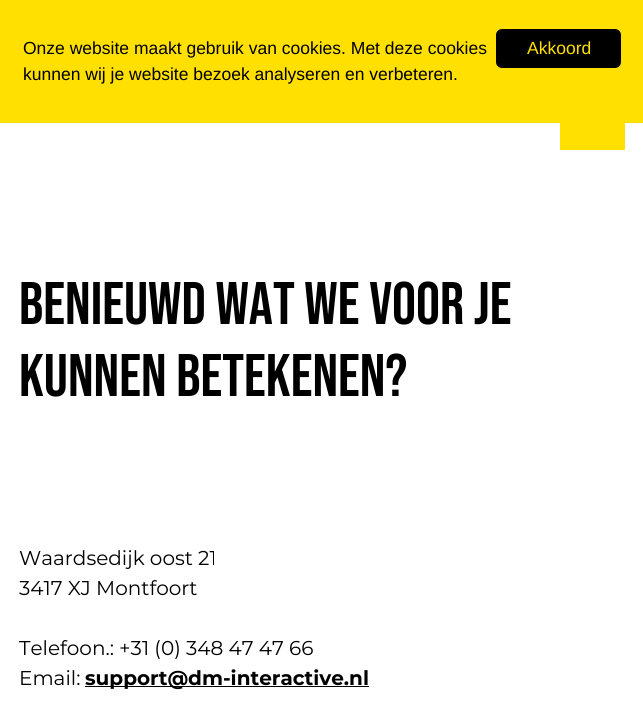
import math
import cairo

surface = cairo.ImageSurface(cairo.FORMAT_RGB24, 643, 710)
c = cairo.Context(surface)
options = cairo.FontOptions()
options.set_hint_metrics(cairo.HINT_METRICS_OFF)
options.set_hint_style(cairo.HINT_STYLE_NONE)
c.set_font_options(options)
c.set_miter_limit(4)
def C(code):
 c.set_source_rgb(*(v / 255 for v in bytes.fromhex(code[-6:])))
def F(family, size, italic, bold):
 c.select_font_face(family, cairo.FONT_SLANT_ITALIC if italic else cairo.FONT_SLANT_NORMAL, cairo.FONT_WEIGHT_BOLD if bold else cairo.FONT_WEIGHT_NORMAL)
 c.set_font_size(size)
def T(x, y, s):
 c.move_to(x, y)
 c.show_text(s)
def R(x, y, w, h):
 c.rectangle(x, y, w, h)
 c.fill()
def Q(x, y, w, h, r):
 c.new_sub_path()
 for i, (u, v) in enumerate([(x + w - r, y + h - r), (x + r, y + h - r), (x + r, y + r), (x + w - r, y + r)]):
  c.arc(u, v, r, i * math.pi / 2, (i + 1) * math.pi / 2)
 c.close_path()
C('ffffff')
c.paint()
C('ffe000')
R(0,0,643,123)
F('Liberation Sans',17.5,0,0)
C('000000')
T(23,54,'Onze website maakt gebruik van cookies. Met deze cookies')
T(23,80,'kunnen wij je website bezoek analyseren en verbeteren.')
Q(496,29,125,39,6)
c.fill()
C('ffe000')
T(527,54,'Akkoord')
R(560,123,65,27)
F('Bebas Neue',60,0,0)
C('000000')
T(19,324,'Benieuwd wat we voor je')
T(19,396,'kunnen betekenen?')
F('Montserrat',20,0,0)
T(19,565,'Waardsedijk oost 21')
T(19,595,'3417 XJ Montfoort')
T(19,655,'Telefoon.: +31 (0) 348 47 47 66')
T(19,685,'Email:')
R(85,686,284,1)
F('Montserrat',20,0,1)
T(85,685,'support@dm-interactive.nl')
surface.write_to_png('o.png')
